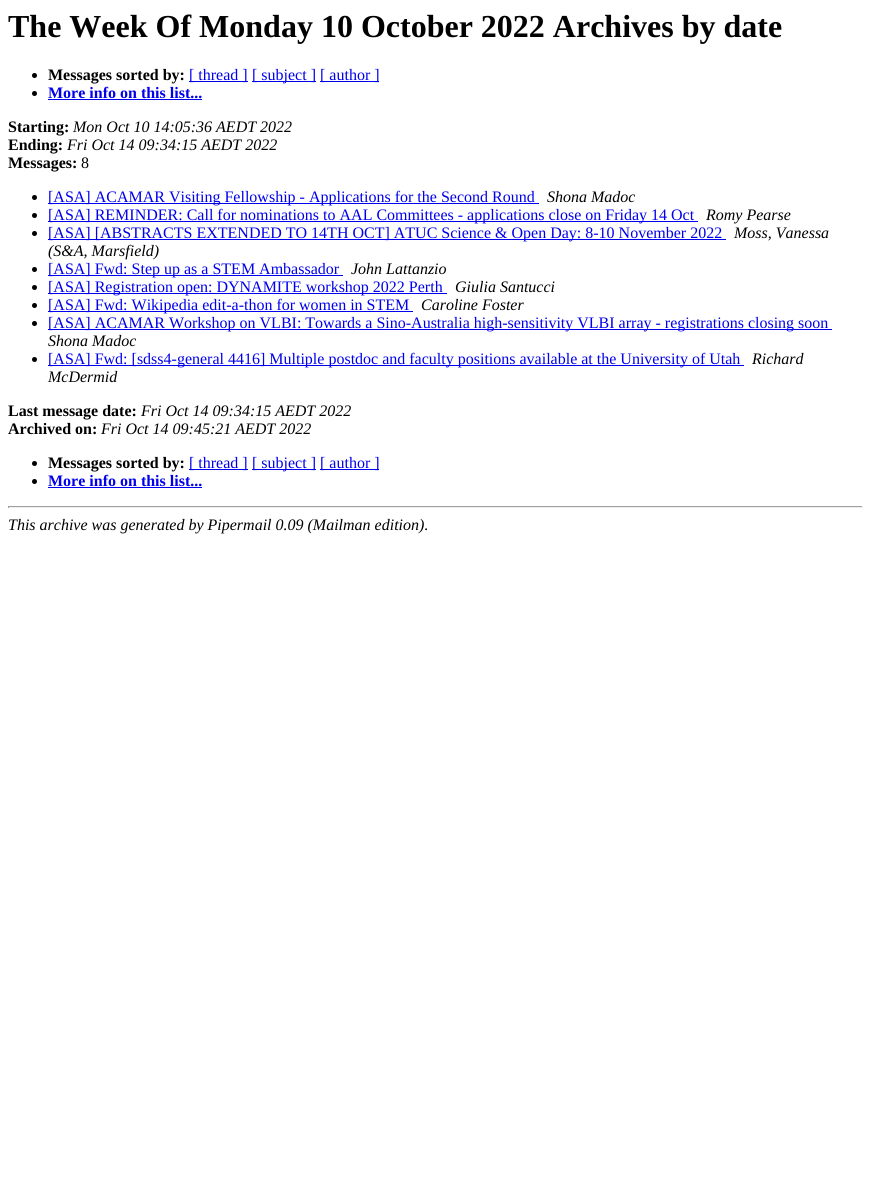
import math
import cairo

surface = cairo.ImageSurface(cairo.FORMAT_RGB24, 871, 1192)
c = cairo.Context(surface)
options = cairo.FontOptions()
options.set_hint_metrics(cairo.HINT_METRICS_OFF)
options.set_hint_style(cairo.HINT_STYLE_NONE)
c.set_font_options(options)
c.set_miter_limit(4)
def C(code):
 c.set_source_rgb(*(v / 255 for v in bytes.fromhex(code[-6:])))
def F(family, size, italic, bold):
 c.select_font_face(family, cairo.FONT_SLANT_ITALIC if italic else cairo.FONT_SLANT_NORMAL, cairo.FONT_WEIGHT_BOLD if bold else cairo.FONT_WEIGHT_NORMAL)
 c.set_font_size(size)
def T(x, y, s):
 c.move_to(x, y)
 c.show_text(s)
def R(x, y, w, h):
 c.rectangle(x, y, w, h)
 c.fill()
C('ffffff')
c.paint()
F('Liberation Serif',32,0,1)
C('000000')
T(8,37,'The Week Of Monday 10 October 2022 Archives by date')
c.new_path()
c.arc(34.5,75.5,2.5,0,2 * math.pi)
c.fill()
F('Liberation Serif',16,0,1)
T(48,80,'Messages sorted by:')
C('0000ee')
R(189,81,59,1)
F('Liberation Serif',16,0,0)
T(189,80,'[ thread ]')
R(252,81,64,1)
T(252,80,'[ subject ]')
R(320,81,59,1)
T(320,80,'[ author ]')
C('000000')
c.new_path()
c.arc(34.5,93.5,2.5,0,2 * math.pi)
c.fill()
F('Liberation Serif',16,0,1)
C('0000ee')
T(48,98,'More info on this list...')
R(48,99,154,1)
C('000000')
T(8,132,'Starting:')
F('Liberation Serif',16,1,0)
T(73,132,'Mon Oct 10 14:05:36 AEDT 2022')
F('Liberation Serif',16,0,1)
T(8,150,'Ending:')
F('Liberation Serif',16,1,0)
T(67,150,'Fri Oct 14 09:34:15 AEDT 2022')
F('Liberation Serif',16,0,1)
T(8,168,'Messages:')
F('Liberation Serif',16,0,0)
T(81,168,'8')
c.new_path()
c.arc(34.5,197.5,2.5,0,2 * math.pi)
c.fill()
C('0000ee')
R(48,203,491,1)
T(48,202,'[ASA] ACAMAR Visiting Fellowship - Applications for the Second Round')
F('Liberation Serif',16,1,0)
C('000000')
T(547,202,'Shona Madoc')
c.new_path()
c.arc(34.5,215.5,2.5,0,2 * math.pi)
c.fill()
C('0000ee')
R(48,221,650,1)
F('Liberation Serif',16,0,0)
T(48,220,'[ASA] REMINDER: Call for nominations to AAL Committees - applications close on Friday 14 Oct')
F('Liberation Serif',16,1,0)
C('000000')
T(706,220,'Romy Pearse')
c.new_path()
c.arc(34.5,233.5,2.5,0,2 * math.pi)
c.fill()
C('0000ee')
R(48,239,678,1)
F('Liberation Serif',16,0,0)
T(48,238,'[ASA] [ABSTRACTS EXTENDED TO 14TH OCT] ATUC Science & Open Day: 8-10 November 2022')
F('Liberation Serif',16,1,0)
C('000000')
T(734,238,'Moss, Vanessa')
T(48,256,'(S&A, Marsfield)')
c.new_path()
c.arc(34.5,269.5,2.5,0,2 * math.pi)
c.fill()
C('0000ee')
R(48,275,295,1)
F('Liberation Serif',16,0,0)
T(48,274,'[ASA] Fwd: Step up as a STEM Ambassador')
F('Liberation Serif',16,1,0)
C('000000')
T(351,274,'John Lattanzio')
c.new_path()
c.arc(34.5,287.5,2.5,0,2 * math.pi)
c.fill()
C('0000ee')
R(48,293,399,1)
F('Liberation Serif',16,0,0)
T(48,292,'[ASA] Registration open: DYNAMITE workshop 2022 Perth')
F('Liberation Serif',16,1,0)
C('000000')
T(455,292,'Giulia Santucci')
c.new_path()
c.arc(34.5,305.5,2.5,0,2 * math.pi)
c.fill()
C('0000ee')
R(48,311,365,1)
F('Liberation Serif',16,0,0)
T(48,310,'[ASA] Fwd: Wikipedia edit-a-thon for women in STEM')
F('Liberation Serif',16,1,0)
C('000000')
T(421,310,'Caroline Foster')
c.new_path()
c.arc(34.5,323.5,2.5,0,2 * math.pi)
c.fill()
C('0000ee')
R(48,329,784,1)
F('Liberation Serif',16,0,0)
T(48,328,'[ASA] ACAMAR Workshop on VLBI: Towards a Sino-Australia high-sensitivity VLBI array - registrations closing soon')
F('Liberation Serif',16,1,0)
C('000000')
T(48,346,'Shona Madoc')
c.new_path()
c.arc(34.5,359.5,2.5,0,2 * math.pi)
c.fill()
C('0000ee')
R(48,365,696,1)
F('Liberation Serif',16,0,0)
T(48,364,'[ASA] Fwd: [sdss4-general 4416] Multiple postdoc and faculty positions available at the University of Utah')
F('Liberation Serif',16,1,0)
C('000000')
T(752,364,'Richard')
T(48,382,'McDermid')
F('Liberation Serif',16,0,1)
T(8,416,'Last message date:')
F('Liberation Serif',16,1,0)
T(141,416,'Fri Oct 14 09:34:15 AEDT 2022')
F('Liberation Serif',16,0,1)
T(8,434,'Archived on:')
F('Liberation Serif',16,1,0)
T(101,434,'Fri Oct 14 09:45:21 AEDT 2022')
c.new_path()
c.arc(34.5,463.5,2.5,0,2 * math.pi)
c.fill()
F('Liberation Serif',16,0,1)
T(48,468,'Messages sorted by:')
C('0000ee')
R(189,469,59,1)
F('Liberation Serif',16,0,0)
T(189,468,'[ thread ]')
R(252,469,64,1)
T(252,468,'[ subject ]')
R(320,469,59,1)
T(320,468,'[ author ]')
C('000000')
c.new_path()
c.arc(34.5,481.5,2.5,0,2 * math.pi)
c.fill()
F('Liberation Serif',16,0,1)
C('0000ee')
T(48,486,'More info on this list...')
R(48,487,154,1)
C('9f9f9f')
R(8,506,855,1)
C('eeeeee')
R(862,506,1,2)
R(8,507,855,1)
C('9f9f9f')
R(8,506,1,2)
F('Liberation Serif',16,1,0)
C('000000')
T(8,530,'This archive was generated by Pipermail 0.09 (Mailman edition).')
surface.write_to_png('o.png')
